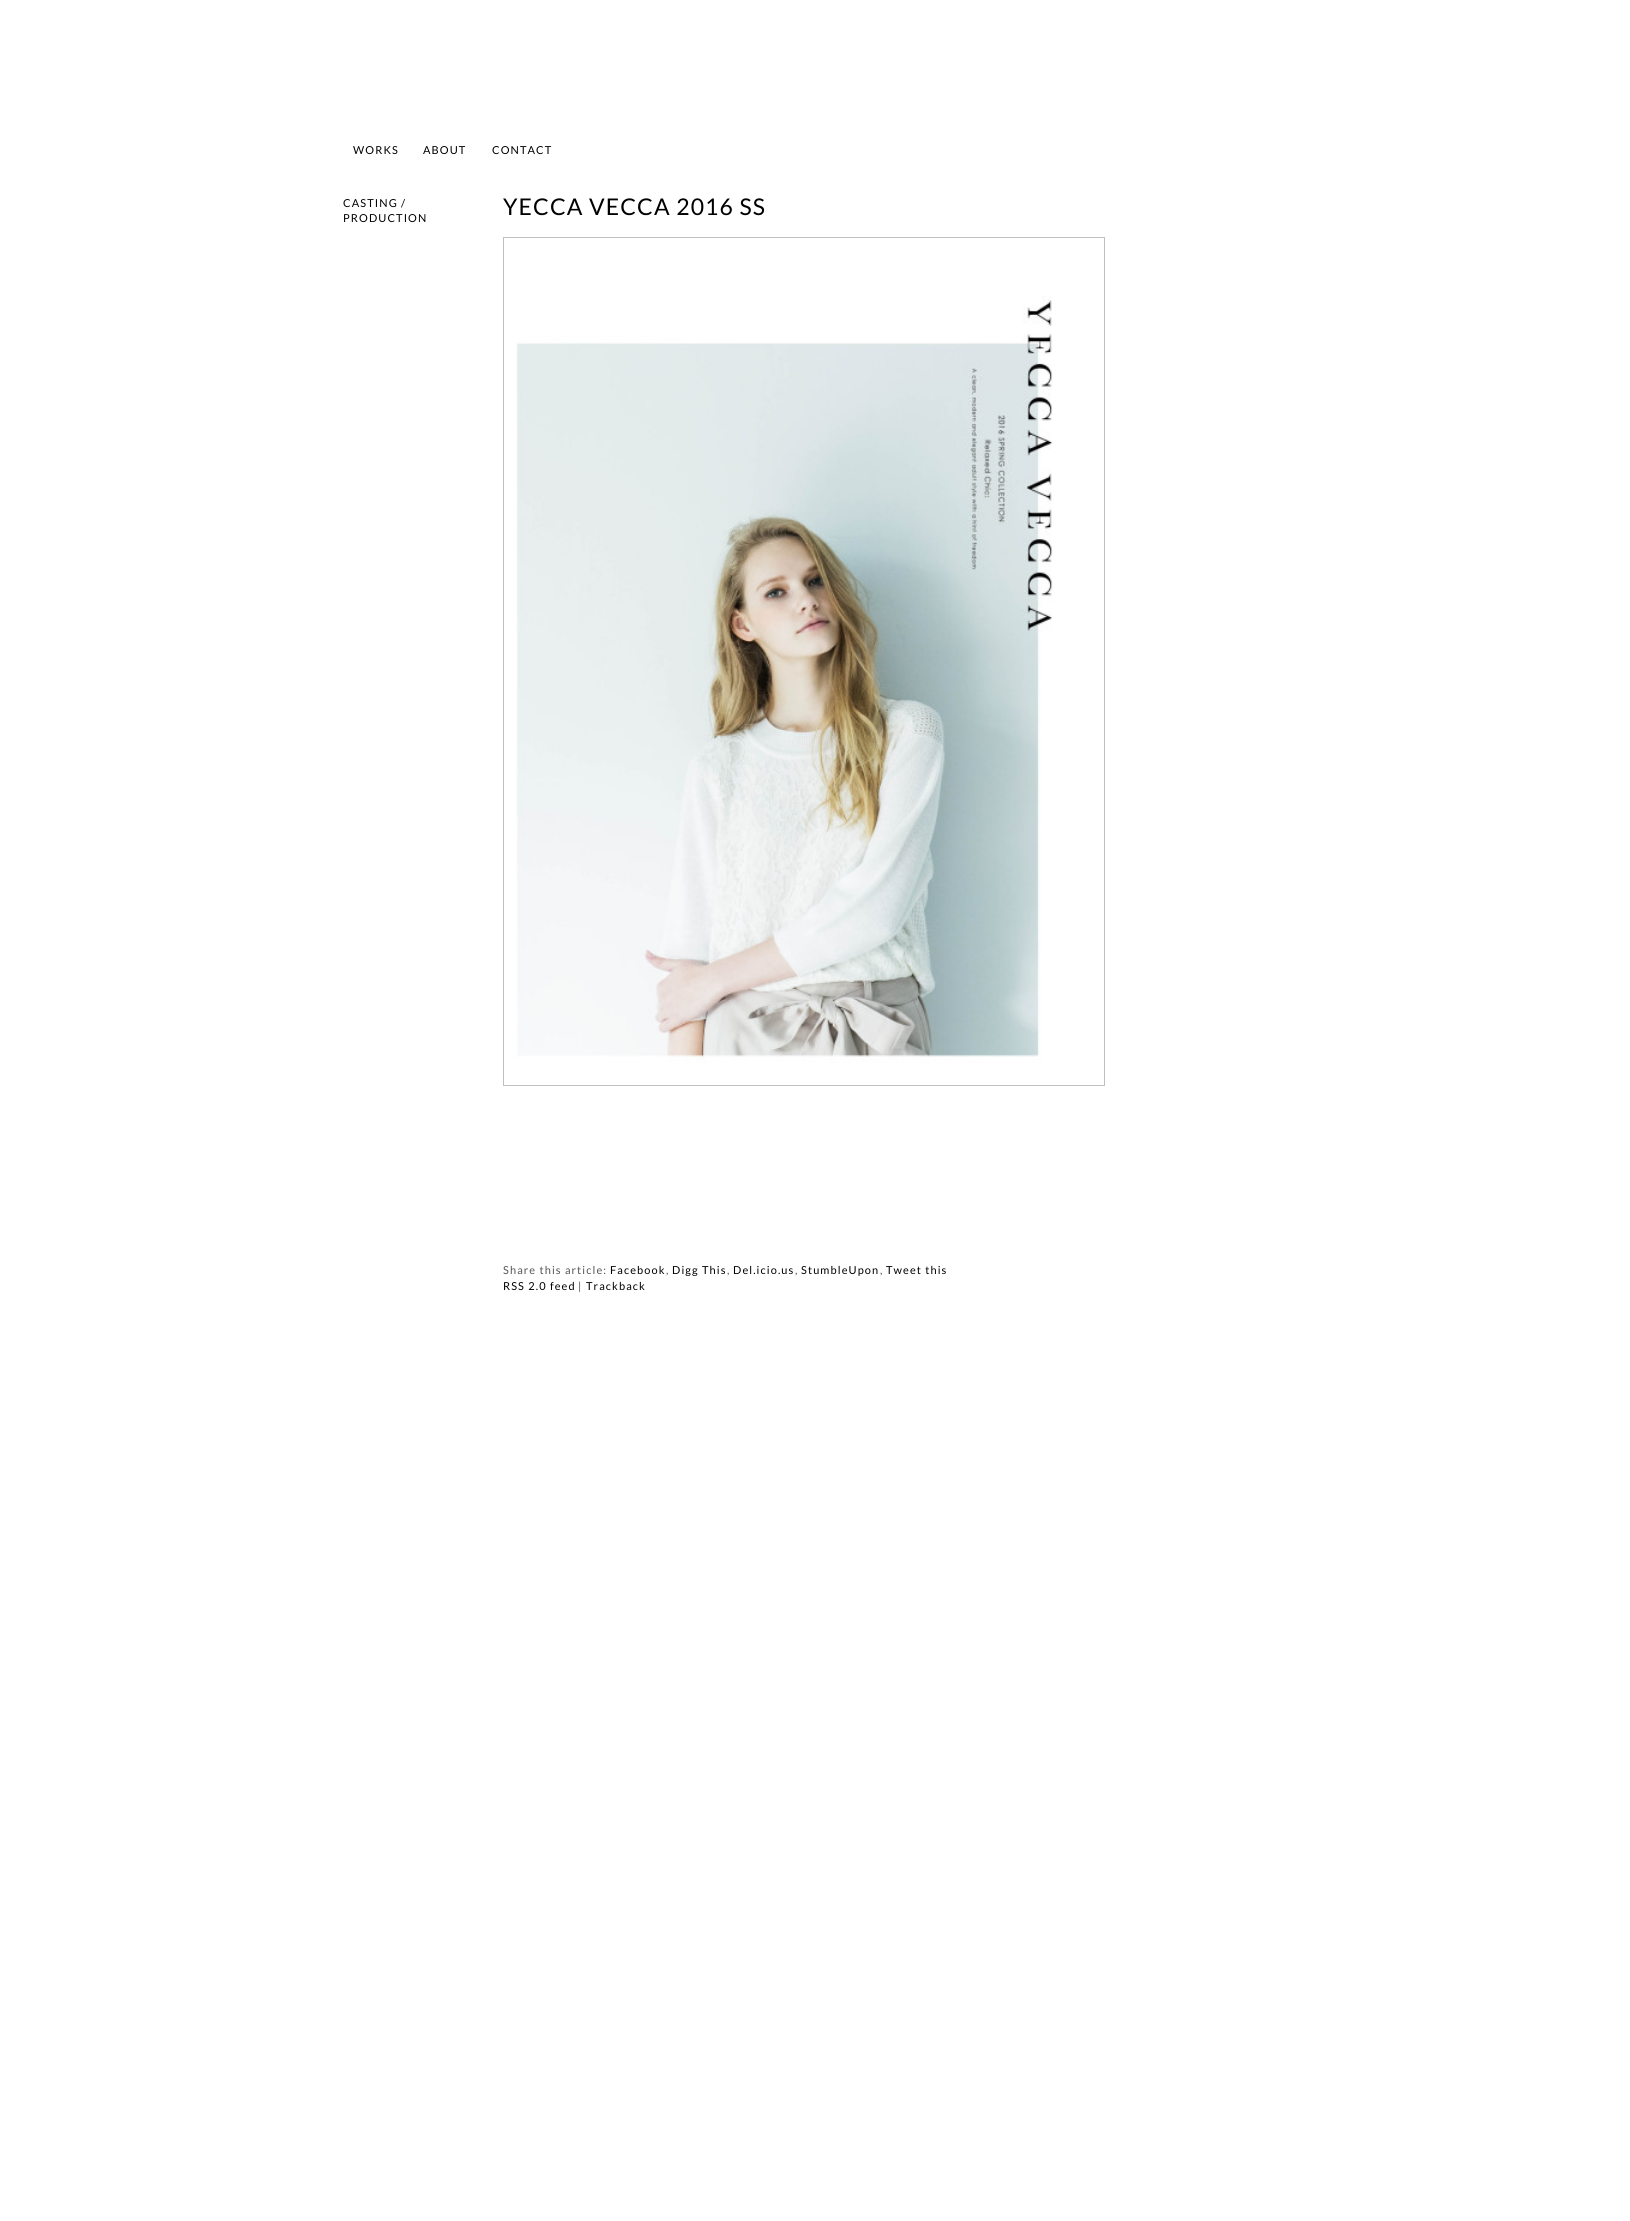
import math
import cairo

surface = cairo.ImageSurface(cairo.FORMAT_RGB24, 1630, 2221)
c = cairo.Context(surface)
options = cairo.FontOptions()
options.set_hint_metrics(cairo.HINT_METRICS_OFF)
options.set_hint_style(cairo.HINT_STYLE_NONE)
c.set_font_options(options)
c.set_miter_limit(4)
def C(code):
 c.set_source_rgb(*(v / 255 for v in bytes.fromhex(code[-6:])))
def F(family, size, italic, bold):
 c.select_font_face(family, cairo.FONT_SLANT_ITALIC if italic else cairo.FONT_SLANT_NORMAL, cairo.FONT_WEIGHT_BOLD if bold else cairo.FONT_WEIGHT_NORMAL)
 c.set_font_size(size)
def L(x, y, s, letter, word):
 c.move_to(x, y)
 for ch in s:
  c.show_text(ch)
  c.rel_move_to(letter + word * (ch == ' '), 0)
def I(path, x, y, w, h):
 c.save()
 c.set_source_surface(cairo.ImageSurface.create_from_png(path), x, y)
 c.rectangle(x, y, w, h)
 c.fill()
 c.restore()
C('ffffff')
c.paint()
F('Lato',11,0,0)
C('000000')
L(353,154,'WORKS',1.1,0)
L(423,154,'ABOUT',1.1,0)
L(492,154,'CONTACT',1.1,0)
L(343,207,'CASTING /',1.1,0)
L(343,222,'PRODUCTION',1.1,0)
F('Lato',23,0,0)
L(503,215,'YECCA VECCA 2016 SS',1.1,0)
c.rectangle(503.5,237.5,601,848)
C('c0c0c0')
c.set_line_width(1)
c.stroke()
I('1.png',516,296,537,767)
F('Lato',11,0,0)
C('555555')
L(503,1274,'Share this article:',1.1,0)
C('000000')
L(610,1274,'Facebook',1.1,0)
C('555555')
L(666,1274,',',1.1,0)
C('000000')
L(672,1274,'Digg This',1.1,0)
C('555555')
L(727,1274,',',1.1,0)
C('000000')
L(733,1274,'Del.icio.us',1.1,0)
C('555555')
L(795,1274,',',1.1,0)
C('000000')
L(801,1274,'StumbleUpon',1.1,0)
C('555555')
L(880,1274,',',1.1,0)
C('000000')
L(886,1274,'Tweet this',1.1,0)
L(503,1290,'RSS 2.0 feed',1.1,0)
C('555555')
L(578,1290,'|',1.1,0)
C('000000')
L(586,1290,'Trackback',1.1,0)
surface.write_to_png('o.png')
